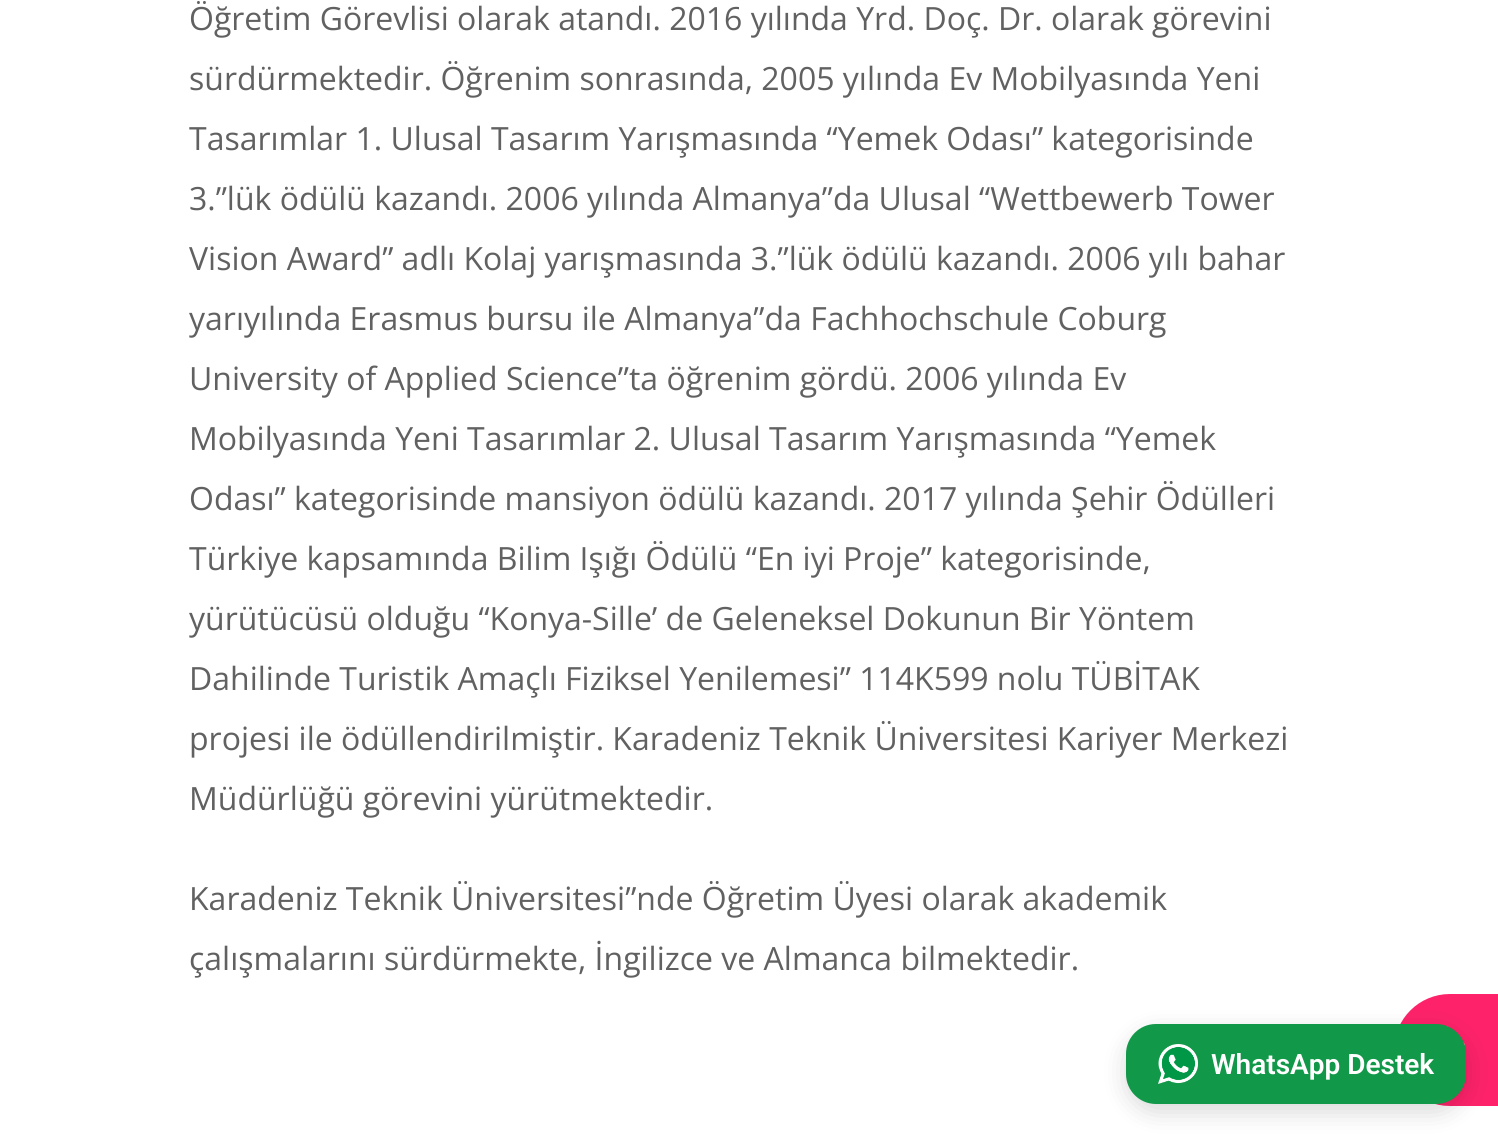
import math
import cairo

surface = cairo.ImageSurface(cairo.FORMAT_RGB24, 1498, 1136)
c = cairo.Context(surface)
options = cairo.FontOptions()
options.set_hint_metrics(cairo.HINT_METRICS_OFF)
options.set_hint_style(cairo.HINT_STYLE_NONE)
c.set_font_options(options)
c.set_miter_limit(4)
def C(code):
 c.set_source_rgb(*(v / 255 for v in bytes.fromhex(code[-6:])))
def F(family, size, italic, bold):
 c.select_font_face(family, cairo.FONT_SLANT_ITALIC if italic else cairo.FONT_SLANT_NORMAL, cairo.FONT_WEIGHT_BOLD if bold else cairo.FONT_WEIGHT_NORMAL)
 c.set_font_size(size)
def T(x, y, s):
 c.move_to(x, y)
 c.show_text(s)
def Q(x, y, w, h, r):
 c.new_sub_path()
 for i, (u, v) in enumerate([(x + w - r, y + h - r), (x + r, y + h - r), (x + r, y + r), (x + w - r, y + r)]):
  c.arc(u, v, r, i * math.pi / 2, (i + 1) * math.pi / 2)
 c.close_path()
def S(x, y, w, h, r, blur, alpha):
 c.push_group_with_content(cairo.CONTENT_ALPHA)
 c.set_operator(cairo.OPERATOR_SOURCE)
 for i in range(15, -16, -2):
  e = blur * i / 6
  if min(w, h) + 2 * e > 0:
   c.set_source_rgba(0, 0, 0, alpha * math.erfc((i - 1) / 8.5) / 2)
   Q(x - e, y - e, w + 2 * e, h + 2 * e, max(0, min(r + e + blur * .6, min(w, h) / 2 + e)))
   c.fill()
 c.mask(c.pop_group())
def I(path, x, y, w, h):
 c.save()
 c.set_source_surface(cairo.ImageSurface.create_from_png(path), x, y)
 c.rectangle(x, y, w, h)
 c.fill()
 c.restore()
C('ffffff')
c.paint()
F('Open Sans',32,0,0)
C('616161')
T(189,30,'Öğretim Görevlisi olarak atandı. 2016 yılında Yrd. Doç. Dr. olarak görevini')
T(189,90,'sürdürmektedir. Öğrenim sonrasında, 2005 yılında Ev Mobilyasında Yeni')
T(189,150,'Tasarımlar 1. Ulusal Tasarım Yarışmasında “Yemek Odası” kategorisinde')
T(189,210,'3.”lük ödülü kazandı. 2006 yılında Almanya”da Ulusal “Wettbewerb Tower')
T(189,270,'Vision Award” adlı Kolaj yarışmasında 3.”lük ödülü kazandı. 2006 yılı bahar')
T(189,330,'yarıyılında Erasmus bursu ile Almanya”da Fachhochschule Coburg')
T(189,390,'University of Applied Science”ta öğrenim gördü. 2006 yılında Ev')
T(189,450,'Mobilyasında Yeni Tasarımlar 2. Ulusal Tasarım Yarışmasında “Yemek')
T(189,510,'Odası” kategorisinde mansiyon ödülü kazandı. 2017 yılında Şehir Ödülleri')
T(189,570,'Türkiye kapsamında Bilim Işığı Ödülü “En iyi Proje” kategorisinde,')
T(189,630,'yürütücüsü olduğu “Konya-Sille’ de Geleneksel Dokunun Bir Yöntem')
T(189,690,'Dahilinde Turistik Amaçlı Fiziksel Yenilemesi” 114K599 nolu TÜBİTAK')
T(189,750,'projesi ile ödüllendirilmiştir. Karadeniz Teknik Üniversitesi Kariyer Merkezi')
T(189,810,'Müdürlüğü görevini yürütmektedir.')
T(189,910,'Karadeniz Teknik Üniversitesi”nde Öğretim Üyesi olarak akademik')
T(189,970,'çalışmalarını sürdürmekte, İngilizce ve Almanca bilmektedir.')
C('fd226a')
c.new_path()
c.move_to(1450,994)
c.line_to(1498,994)
c.line_to(1498,1106)
c.line_to(1450,1106)
c.curve_to(1419,1106,1394,1081,1394,1050)
c.curve_to(1394,1019,1419,994,1450,994)
c.close_path()
c.fill()
I('2.png',1446,1026,19,20)
C('000000')
S(1126,1032,340,80,30,12,.15)
C('119849')
Q(1126,1024,340,80,30)
c.fill()
I('1.png',1158,1044,40,40)
F('Roboto SemiBold',28,0,0)
C('ffffff')
T(1211,1074,'WhatsApp Destek')
surface.write_to_png('o.png')
